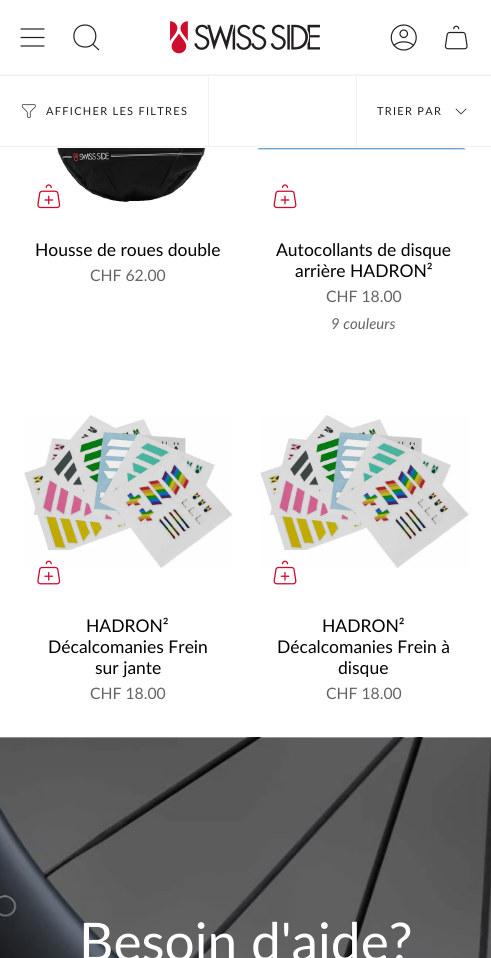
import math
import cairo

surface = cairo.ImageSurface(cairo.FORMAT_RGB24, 491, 958)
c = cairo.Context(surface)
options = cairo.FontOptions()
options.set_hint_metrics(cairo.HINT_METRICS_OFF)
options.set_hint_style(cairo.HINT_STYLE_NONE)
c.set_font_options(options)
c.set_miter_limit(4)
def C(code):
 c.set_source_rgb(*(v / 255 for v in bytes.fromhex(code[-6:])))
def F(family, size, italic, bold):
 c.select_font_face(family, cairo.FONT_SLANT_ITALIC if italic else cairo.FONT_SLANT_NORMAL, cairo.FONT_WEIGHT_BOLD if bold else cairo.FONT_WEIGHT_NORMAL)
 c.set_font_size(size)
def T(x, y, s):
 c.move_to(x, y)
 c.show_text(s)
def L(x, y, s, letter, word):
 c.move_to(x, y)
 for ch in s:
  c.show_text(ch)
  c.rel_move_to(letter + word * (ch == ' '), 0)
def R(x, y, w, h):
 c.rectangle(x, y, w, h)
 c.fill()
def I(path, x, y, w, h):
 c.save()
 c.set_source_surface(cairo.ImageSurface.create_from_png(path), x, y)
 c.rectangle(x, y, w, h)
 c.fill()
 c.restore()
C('ffffff')
c.paint()
C('f5f5f5')
R(0,74,491,1)
c.new_path()
c.move_to(21,29)
c.line_to(44,29)
c.move_to(21,37.5)
c.line_to(44,37.5)
c.move_to(21,46)
c.line_to(44,46)
C('212121')
c.set_line_width(1.2)
c.set_line_cap(cairo.LINE_CAP_ROUND)
c.set_line_join(cairo.LINE_JOIN_ROUND)
c.stroke()
c.new_path()
c.move_to(85,25)
c.curve_to(99.5,25,99.5,48,84.5,47)
c.curve_to(70,46.5,70.5,25,85,25)
c.close_path()
c.move_to(92.5,44)
c.line_to(99,50)
c.set_line_cap(cairo.LINE_CAP_BUTT)
c.set_line_join(cairo.LINE_JOIN_MITER)
c.stroke()
I('1.png',170,21,150,33)
I('2.png',390,24,27,27)
I('3.png',444,25,24,25)
C('f0f0f0')
R(0,75,491,1)
R(0,146,491,1)
R(208,76,1,70)
I('4.png',21,104,15,14)
F('Lato',11,0,0)
C('212121')
L(46,115,'AFFICHER LES FILTRES',1.3,0)
C('f0f0f0')
R(356,76,1,70)
C('212121')
L(377,115,'TRIER PAR',1.3,0)
c.new_path()
c.move_to(456,109)
c.line_to(461,114)
c.line_to(466,109)
c.set_line_width(.8)
c.set_line_cap(cairo.LINE_CAP_ROUND)
c.set_line_join(cairo.LINE_JOIN_ROUND)
c.stroke()
I('6.png',57,148,149,54)
C('ffffff')
R(70,174,1,1)
I('5.png',37,184,24,25)
F('Lato',17.5,0,0)
C('000000')
T(35,256,'Housse de roues double')
F('Lato',15.75,0,0)
C('646464')
T(90,281,'CHF 62.00')
I('7.png',257,148,209,3)
I('8.png',273,184,24,25)
F('Lato',17.5,0,0)
C('000000')
T(276,256,'Autocollants de disque')
T(295,277,'arrière HADRON²')
F('Lato',15.75,0,0)
C('646464')
T(326,302,'CHF 18.00')
F('Lato',15,1,0)
T(331,329,'9 couleurs')
I('9.png',24,415,209,153)
C('ffffff')
R(48,550,22,8)
I('10.png',37,560,24,25)
F('Lato',17.5,0,0)
C('000000')
T(86,632,'HADRON²')
T(48,653,'Décalcomanies Frein')
T(95,674,'sur jante')
F('Lato',15.75,0,0)
C('646464')
T(90,699,'CHF 18.00')
I('11.png',260,415,209,153)
C('ffffff')
R(284,550,23,8)
I('12.png',273,560,24,25)
F('Lato',17.5,0,0)
C('000000')
T(322,632,'HADRON²')
T(277,653,'Décalcomanies Frein à')
T(338,674,'disque')
F('Lato',15.75,0,0)
C('646464')
T(326,699,'CHF 18.00')
I('13.png',0,737,491,221)
F('Lato',53.25,0,0)
C('ffffff')
T(79,961,'Besoin d\'aide?')
surface.write_to_png('o.png')
